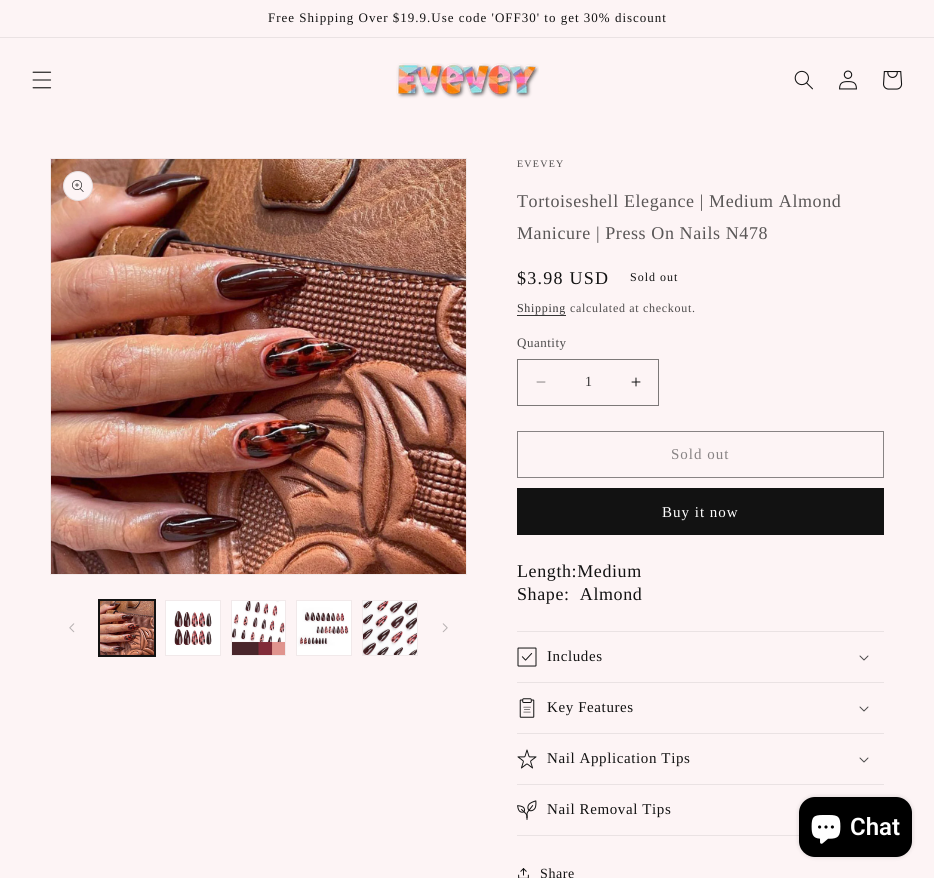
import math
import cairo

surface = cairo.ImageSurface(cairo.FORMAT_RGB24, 934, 878)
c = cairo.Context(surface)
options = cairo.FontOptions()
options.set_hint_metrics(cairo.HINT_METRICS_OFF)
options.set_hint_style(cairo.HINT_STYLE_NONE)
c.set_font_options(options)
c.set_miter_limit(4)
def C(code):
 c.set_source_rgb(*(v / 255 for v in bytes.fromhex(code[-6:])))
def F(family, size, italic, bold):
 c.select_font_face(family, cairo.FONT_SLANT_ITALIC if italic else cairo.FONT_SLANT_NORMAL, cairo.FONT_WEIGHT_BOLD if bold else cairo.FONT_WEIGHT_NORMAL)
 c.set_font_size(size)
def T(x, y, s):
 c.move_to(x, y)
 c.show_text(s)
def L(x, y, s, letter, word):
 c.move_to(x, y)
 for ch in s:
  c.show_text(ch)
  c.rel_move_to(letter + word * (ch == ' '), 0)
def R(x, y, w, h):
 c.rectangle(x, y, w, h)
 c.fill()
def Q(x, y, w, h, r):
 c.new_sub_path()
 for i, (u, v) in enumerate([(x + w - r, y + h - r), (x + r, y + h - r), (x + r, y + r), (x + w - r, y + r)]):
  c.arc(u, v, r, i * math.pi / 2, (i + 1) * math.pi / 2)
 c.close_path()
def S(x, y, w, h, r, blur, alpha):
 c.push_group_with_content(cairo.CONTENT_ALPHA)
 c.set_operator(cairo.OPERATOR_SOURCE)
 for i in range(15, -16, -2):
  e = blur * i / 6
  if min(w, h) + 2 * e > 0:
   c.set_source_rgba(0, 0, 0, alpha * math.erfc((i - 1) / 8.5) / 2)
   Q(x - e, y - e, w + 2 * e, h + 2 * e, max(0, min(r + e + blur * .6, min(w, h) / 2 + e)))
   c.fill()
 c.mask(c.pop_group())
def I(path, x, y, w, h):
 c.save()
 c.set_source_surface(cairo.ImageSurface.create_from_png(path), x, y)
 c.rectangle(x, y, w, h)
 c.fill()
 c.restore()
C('fdf4f5')
c.paint()
C('eae2e3')
R(0,37,934,1)
F('Liberation Serif',13,0,0)
C('121212')
L(268,22,'Free Shipping Over $19.9.Use code \'OFF30\' to get 30% discount',1,0)
I('1.png',32,71,20,18)
I('2.png',396,63,143,36)
I('3.png',794,70,19,20)
I('4.png',839,70,18,20)
I('5.png',883,71,20,19)
c.rectangle(50.5,158.5,416,416)
C('f1e9ea')
c.set_line_width(1)
c.stroke()
I('6.png',51,159,415,415)
C('fdf4f5')
c.arc(78,186,15,0,2 * math.pi)
c.fill()
c.arc(78,186,14.5,0,2 * math.pi)
c.set_source_rgba(0.071,0.071,0.071,0.1)
c.stroke()
I('7.png',72,180,12,12)
I('8.png',69,623,6,10)
c.rectangle(98.5,599.5,57,57)
C('121212')
c.stroke()
c.rectangle(99.5,600.5,55,55)
c.stroke()
I('9.png',100,601,54,54)
c.rectangle(165.5,600.5,55,55)
C('f1e9ea')
c.stroke()
I('10.png',166,601,54,54)
c.rectangle(231.5,600.5,54,55)
c.stroke()
I('11.png',232,601,53,54)
c.rectangle(296.5,600.5,55,55)
c.stroke()
I('12.png',297,601,54,54)
c.rectangle(362.5,600.5,55,55)
c.stroke()
I('13.png',363,601,54,54)
I('14.png',442,623,6,10)
F('Liberation Serif',10,0,0)
C('4d4b4b')
L(517,167,'EVEVEY',1.25,0)
F('Liberation Serif',18,0,0)
C('595656')
L(517,207,'Tortoiseshell Elegance | Medium Almond',.6,0)
L(517,239,'Manicure | Press On Nails N478',.6,0)
C('121212')
L(517,284,'$3.98 USD',1.25,0)
F('Liberation Serif',12,0,0)
L(630,281,'Sold out',1,0)
C('353434')
L(517,312,'Shipping',.7,0)
R(517,315,49,1)
C('4d4b4b')
L(570,312,'calculated at checkout.',.7,0)
F('Liberation Serif',13,0,0)
L(517,347,'Quantity',.5,0)
I('15.png',536,381,10,2)
I('16.png',631,377,10,10)
c.rectangle(517.5,359.5,141,46)
C('7c7878')
c.stroke()
F('Liberation Serif',14,0,0)
C('353434')
T(585,386,'1')
c.rectangle(517.5,431.5,366,46)
C('888384')
c.stroke()
F('Liberation Serif',15,0,0)
L(671,459,'Sold out',1,0)
C('121212')
R(517,488,367,47)
C('ffffff')
L(662,517,'Buy it now',1,0)
F('Liberation Serif',18,0,0)
C('121212')
L(517,577,'Length:Medium',.6,0)
L(517,600,'Shape:  Almond',.6,0)
C('eae2e3')
R(517,631,367,1)
R(517,682,367,1)
I('17.png',517,647,20,20)
F('Liberation Serif',15,0,0)
C('121212')
L(547,661,'Includes',.6,0)
I('18.png',859,655,10,6)
C('eae2e3')
R(517,733,367,1)
I('19.png',519,698,16,20)
C('121212')
L(547,712,'Key Features',.6,0)
I('18.png',859,706,10,6)
C('eae2e3')
R(517,784,367,1)
I('20.png',517,749,20,20)
C('121212')
L(547,763,'Nail Application Tips',.6,0)
I('18.png',859,757,10,6)
C('eae2e3')
R(517,835,282,1)
I('21.png',517,800,20,20)
C('121212')
L(547,814,'Nail Removal Tips',.6,0)
I('22.png',518,868,11,10)
F('Liberation Serif',14,0,0)
L(540,878,'Share',.6,0)
C('000000')
S(799,797,113,60,16,2.5,.15)
C('000000')
Q(799,797,113,60,16)
c.fill()
I('23.png',811,815,30,29)
F('Roboto SemiBold',24,0,0)
C('ffffff')
T(850,835,'Chat')
surface.write_to_png('o.png')
